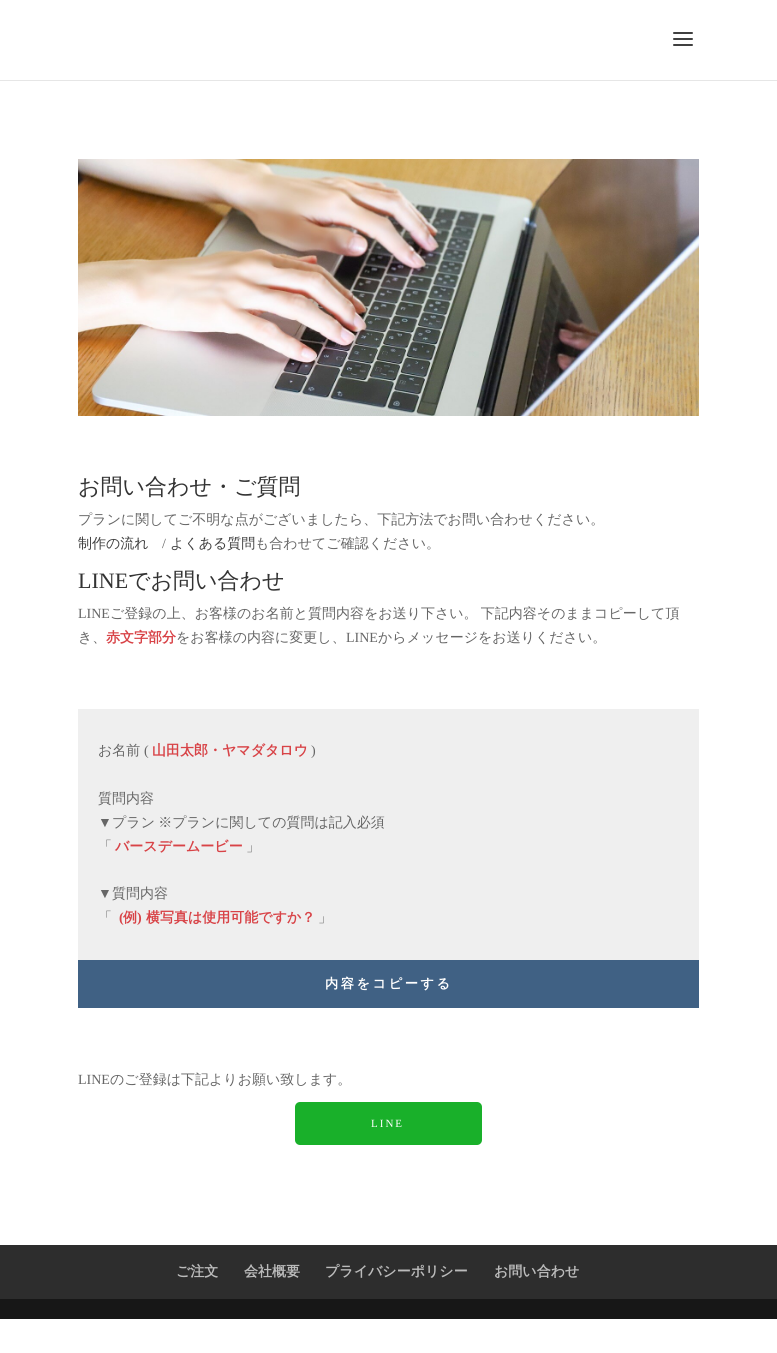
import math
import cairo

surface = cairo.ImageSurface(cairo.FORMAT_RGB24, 777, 1353)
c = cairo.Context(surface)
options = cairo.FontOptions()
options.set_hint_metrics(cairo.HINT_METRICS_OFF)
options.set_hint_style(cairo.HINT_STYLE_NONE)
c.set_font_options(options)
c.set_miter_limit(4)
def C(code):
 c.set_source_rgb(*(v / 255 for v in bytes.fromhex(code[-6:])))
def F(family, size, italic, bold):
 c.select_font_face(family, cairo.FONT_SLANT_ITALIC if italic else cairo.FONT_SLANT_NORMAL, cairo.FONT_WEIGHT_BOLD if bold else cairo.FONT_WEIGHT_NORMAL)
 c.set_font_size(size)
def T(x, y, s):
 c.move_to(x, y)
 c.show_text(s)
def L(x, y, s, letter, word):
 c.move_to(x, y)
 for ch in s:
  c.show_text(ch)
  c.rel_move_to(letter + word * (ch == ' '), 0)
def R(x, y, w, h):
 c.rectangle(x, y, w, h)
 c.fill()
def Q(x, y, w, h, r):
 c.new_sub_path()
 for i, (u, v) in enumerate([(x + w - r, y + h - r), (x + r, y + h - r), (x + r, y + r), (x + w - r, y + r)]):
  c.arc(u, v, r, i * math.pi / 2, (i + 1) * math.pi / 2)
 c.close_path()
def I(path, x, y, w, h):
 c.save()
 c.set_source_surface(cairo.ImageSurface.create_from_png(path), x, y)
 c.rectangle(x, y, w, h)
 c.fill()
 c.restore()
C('ffffff')
c.paint()
C('e6e6e6')
R(0,80,777,1)
I('1.png',673,32,20,14)
I('2.png',78,159,621,257)
F('WenQuanYi Zen Hei Medium',22,0,0)
C('333333')
T(78,494,'お問い合わせ・ご質問')
F('WenQuanYi Zen Hei Medium',14,0,0)
C('666666')
T(78,524,'プランに関してご不明な点がございましたら、下記方法でお問い合わせください。')
C('404040')
T(78,548,'制作の流れ')
F('Liberation Serif',14,0,0)
C('666666')
T(162,548,'/')
F('WenQuanYi Zen Hei Medium',14,0,0)
C('404040')
T(170,548,'よくある質問')
C('666666')
T(255,548,'も合わせてご確認ください。')
F('Liberation Serif',22,0,0)
C('333333')
T(78,588,'LINE')
F('WenQuanYi Zen Hei Medium',22,0,0)
T(128,588,'でお問い合わせ')
F('Liberation Serif',14,0,0)
C('666666')
T(78,618,'LINE')
F('WenQuanYi Zen Hei Medium',14,0,0)
L(110,618,'ご登録の上、お客様のお名前と質問内容をお送り下さい。 下記内容そのままコピーして頂',0,-1)
T(78,642,'き、')
F('WenQuanYi Zen Hei',14,0,1)
C('d84347')
T(106,642,'赤文字部分')
F('WenQuanYi Zen Hei Medium',14,0,0)
C('666666')
T(176,642,'をお客様の内容に変更し、')
F('Liberation Serif',14,0,0)
T(346,642,'LINE')
F('WenQuanYi Zen Hei Medium',14,0,0)
T(378,642,'からメッセージをお送りください。')
C('efefef')
R(78,709,621,251)
C('666666')
T(98,755,'お名前')
F('Liberation Serif',14,0,0)
T(144,755,'(')
F('WenQuanYi Zen Hei',14,0,1)
C('d84347')
T(152,755,'山田太郎・ヤマダタロウ')
F('Liberation Serif',14,0,0)
C('666666')
T(311,755,')')
F('WenQuanYi Zen Hei Medium',14,0,0)
T(98,803,'質問内容')
F('Liberation Serif',14,0,0)
T(98,827,'▼')
F('WenQuanYi Zen Hei Medium',14,0,0)
L(112,827,'プラン ※プランに関しての質問は記入必須',0,-1)
T(98,851,'「')
F('WenQuanYi Zen Hei',14,0,1)
C('d84347')
T(115,851,'バースデームービー')
F('WenQuanYi Zen Hei Medium',14,0,0)
C('666666')
T(246,851,'」')
F('Liberation Serif',14,0,0)
T(98,898,'▼')
F('WenQuanYi Zen Hei Medium',14,0,0)
T(112,898,'質問内容')
T(98,922,'「')
F('Liberation Serif',14,0,1)
C('d84347')
T(119,922,'(')
F('WenQuanYi Zen Hei',14,0,1)
T(123,922,'例')
F('Liberation Serif',14,0,1)
T(137,922,')')
F('WenQuanYi Zen Hei',14,0,1)
T(146,922,'横写真は使用可能ですか？')
F('WenQuanYi Zen Hei Medium',14,0,0)
C('666666')
T(318,922,'」')
C('406184')
R(78,960,621,48)
F('WenQuanYi Zen Hei',13.25,0,1)
C('ffffff')
L(325,988,'内容をコピーする',2.5,0)
F('Liberation Serif',14,0,0)
C('666666')
T(78,1084,'LINE')
F('WenQuanYi Zen Hei Medium',14,0,0)
T(110,1084,'のご登録は下記よりお願い致します。')
C('19b02a')
Q(295,1102,187,43,5)
c.fill()
F('Liberation Serif',11,0,0)
C('ffffff')
L(371,1127,'LINE',2,0)
C('2d2d2d')
R(0,1245,777,54)
F('WenQuanYi Zen Hei',14,0,1)
C('bbbbbb')
T(176,1276,'ご注文')
T(244,1276,'会社概要')
T(325,1276,'プライバシーポリシー')
T(494,1276,'お問い合わせ')
C('171717')
R(0,1299,777,20)
surface.write_to_png('o.png')
